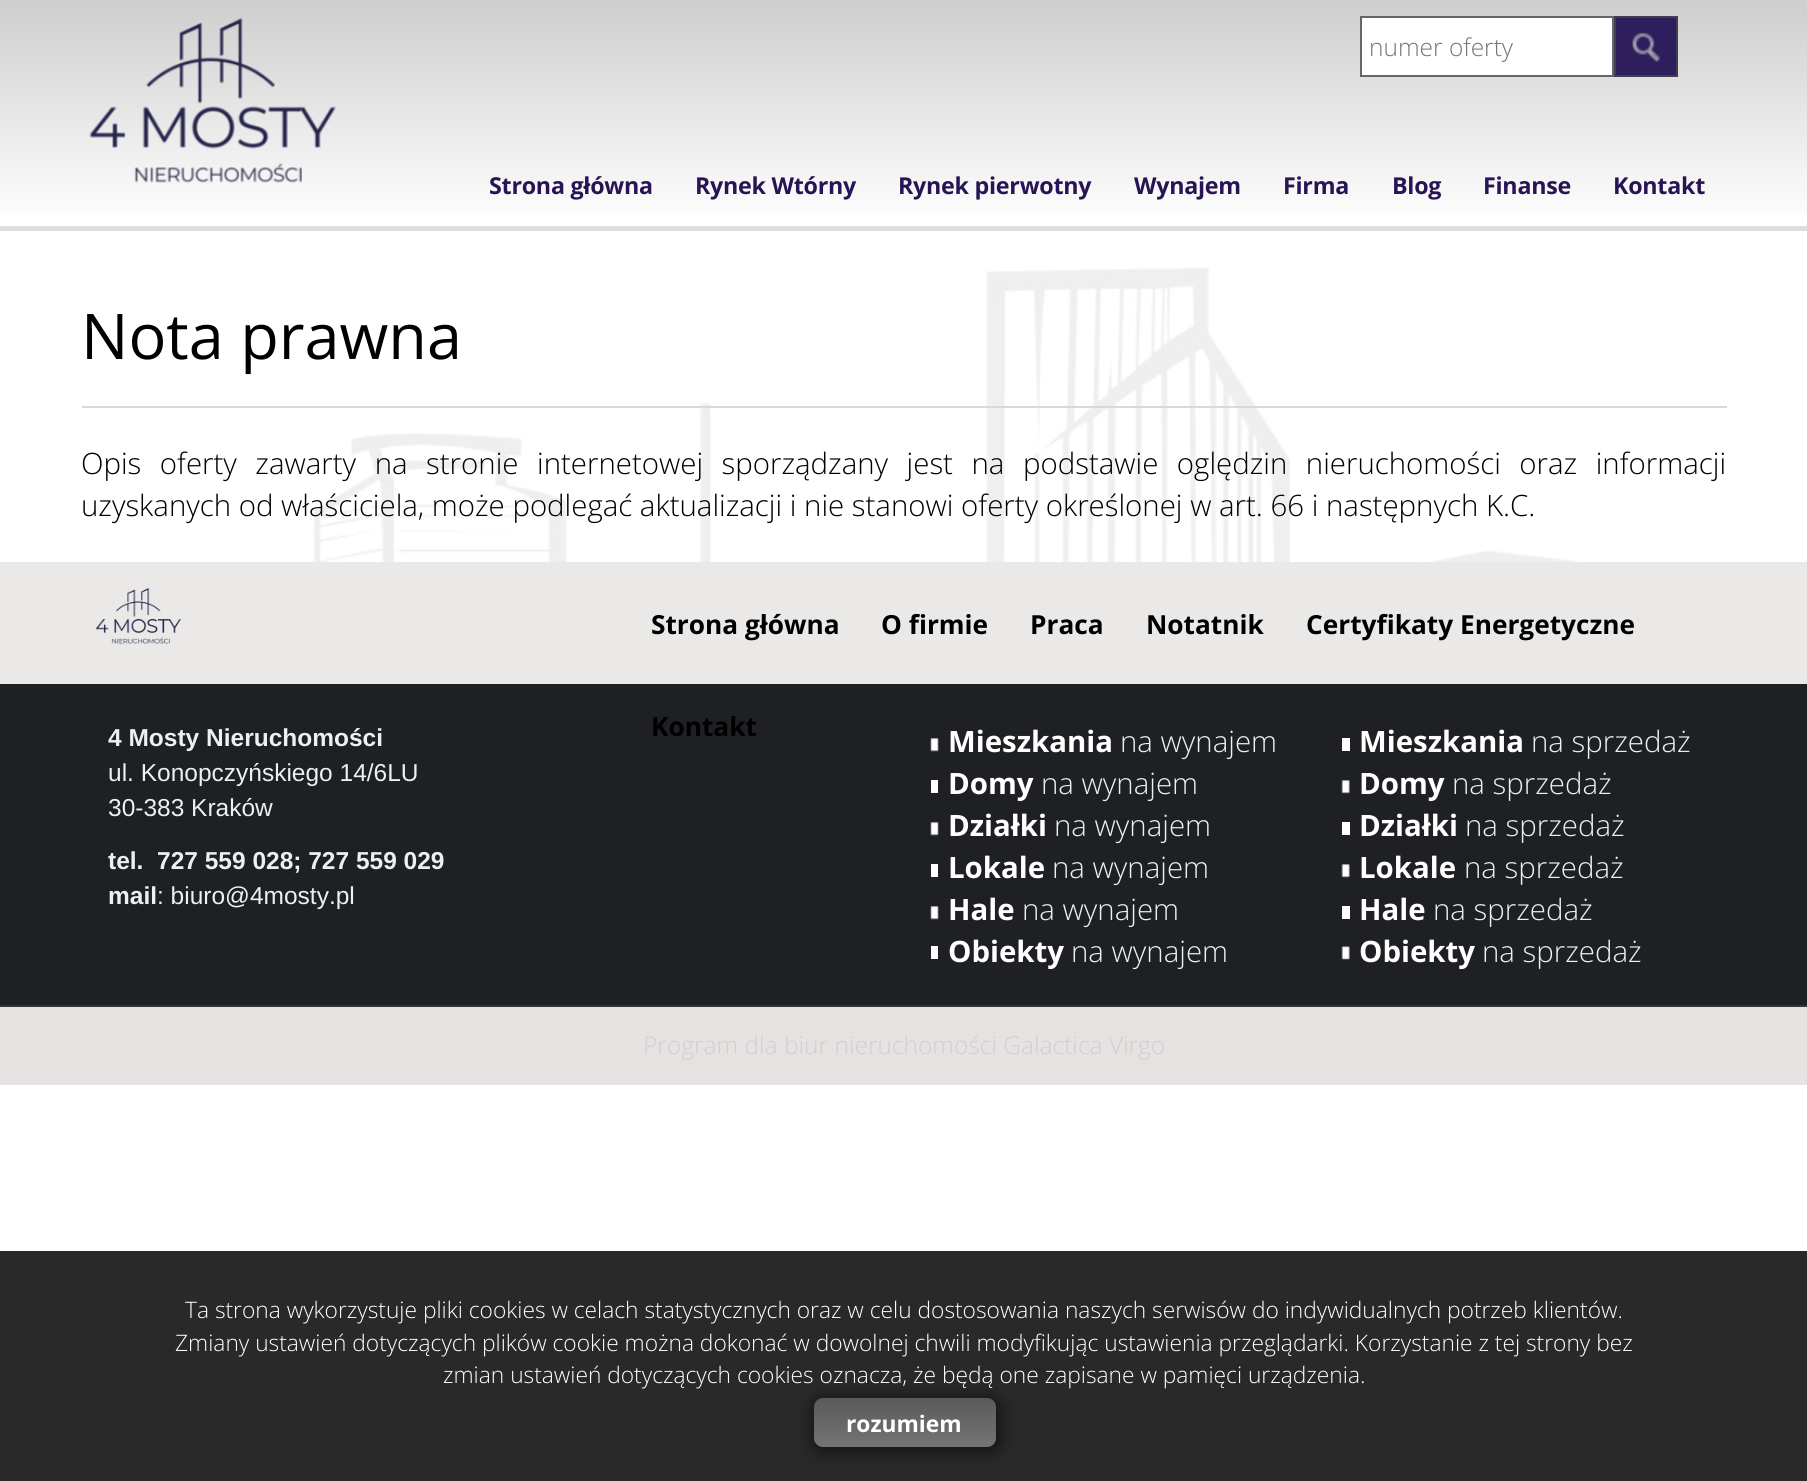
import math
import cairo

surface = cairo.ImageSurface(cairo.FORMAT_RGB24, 1807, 1481)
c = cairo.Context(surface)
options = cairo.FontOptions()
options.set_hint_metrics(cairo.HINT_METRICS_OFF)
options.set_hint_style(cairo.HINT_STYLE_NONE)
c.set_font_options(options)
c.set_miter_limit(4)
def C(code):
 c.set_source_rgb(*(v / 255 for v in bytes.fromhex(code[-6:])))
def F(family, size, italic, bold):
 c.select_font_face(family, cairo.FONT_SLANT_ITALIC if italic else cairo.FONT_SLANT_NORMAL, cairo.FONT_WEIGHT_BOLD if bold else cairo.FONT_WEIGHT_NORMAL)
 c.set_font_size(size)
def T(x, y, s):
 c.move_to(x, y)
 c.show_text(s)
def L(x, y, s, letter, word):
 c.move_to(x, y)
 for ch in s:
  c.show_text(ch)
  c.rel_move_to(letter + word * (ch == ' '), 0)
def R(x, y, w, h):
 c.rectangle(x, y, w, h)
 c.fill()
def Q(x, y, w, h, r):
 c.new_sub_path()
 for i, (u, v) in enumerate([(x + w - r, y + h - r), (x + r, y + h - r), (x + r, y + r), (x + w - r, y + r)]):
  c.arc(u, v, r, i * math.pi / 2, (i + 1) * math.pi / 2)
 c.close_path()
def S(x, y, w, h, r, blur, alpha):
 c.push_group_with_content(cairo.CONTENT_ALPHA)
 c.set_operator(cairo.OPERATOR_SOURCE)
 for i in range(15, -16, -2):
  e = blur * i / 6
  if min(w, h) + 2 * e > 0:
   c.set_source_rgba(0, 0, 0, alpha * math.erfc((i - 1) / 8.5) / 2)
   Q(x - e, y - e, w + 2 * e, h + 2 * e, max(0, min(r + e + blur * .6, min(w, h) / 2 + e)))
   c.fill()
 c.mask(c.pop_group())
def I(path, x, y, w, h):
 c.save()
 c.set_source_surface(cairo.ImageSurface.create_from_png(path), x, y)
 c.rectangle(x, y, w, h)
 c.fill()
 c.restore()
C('ffffff')
c.paint()
gradient = cairo.LinearGradient(904,0,904,226)
gradient.add_color_stop_rgba(0,0.808,0.808,0.808,1)
gradient.add_color_stop_rgba(1,1,1,1,1)
c.set_source(gradient)
R(0,0,1807,214)
C('dddddd')
R(0,226,1807,5)
I('1.png',89,18,247,165)
C('ffffff')
c.rectangle(1361,17,252,59)
c.fill_preserve()
C('63676b')
c.stroke()
F('Open Sans Light',24.5,0,0)
C('757575')
T(1369,56,'numer oferty')
C('2f1e5e')
R(1616,18,60,57)
I('2.png',1632,32,29,30)
c.rectangle(1615,17,62,59)
C('3f3f4e')
c.stroke()
F('Open Sans',23.25,0,1)
C('281455')
L(489,194,'Strona główna',-.25,0)
L(695,194,'Rynek Wtórny',-.25,0)
L(898,194,'Rynek pierwotny',-.25,0)
L(1134,194,'Wynajem',-.25,0)
L(1283,194,'Firma',-.25,0)
L(1392,194,'Blog',-.25,0)
L(1483,194,'Finanse',-.25,0)
L(1613,194,'Kontakt',-.25,0)
I('3.png',313,267,1264,295)
C('d9d9d9')
R(82,406,1645,2)
F('Open Sans',63,0,0)
C('000000')
T(81,359,'Nota prawna')
F('Open Sans Light',29.4,0,0)
L(81,474,'Opis oferty zawarty na stronie internetowej sporządzany jest na podstawie oględzin nieruchomości oraz informacji',0,10.9)
T(81,516,'uzyskanych od właściciela, może podlegać aktualizacji i nie stanowi oferty określonej w art. 66 i następnych K.C.')
C('eae9e7')
R(0,562,1807,122)
I('4.png',96,587,86,57)
F('Open Sans',26.25,0,1)
C('000000')
T(651,634,'Strona główna')
T(881,634,'O firmie')
T(1030,634,'Praca')
T(1146,634,'Notatnik')
T(1306,634,'Certyfikaty Energetyczne')
C('1e2024')
R(0,684,1807,321)
C('000000')
T(651,736,'Kontakt')
F('Liberation Sans',24.5,0,1)
C('ecf0f1')
T(108,746,'4 Mosty Nieruchomości')
F('Liberation Sans',24.5,0,0)
T(108,781,'ul. Konopczyńskiego 14/6LU')
T(108,816,'30-383 Kraków')
F('Liberation Sans',24.5,0,1)
T(108,869,'tel.  727 559 028; 727 559 029')
T(108,904,'mail')
F('Liberation Sans',24.5,0,0)
T(157,904,': biuro@4mosty.pl')
I('5.png',930,738,9,14)
F('Open Sans',29.4,0,1)
C('ffffff')
T(948,752,'Mieszkania')
F('Open Sans Light',29.4,0,0)
C('ecf0f1')
T(1120,752,'na wynajem')
C('ffffff')
R(931,780,7,13)
F('Open Sans',29.4,0,1)
T(948,794,'Domy')
F('Open Sans Light',29.4,0,0)
C('ecf0f1')
T(1041,794,'na wynajem')
I('5.png',930,822,9,14)
F('Open Sans',29.4,0,1)
C('ffffff')
T(948,836,'Działki')
F('Open Sans Light',29.4,0,0)
C('ecf0f1')
T(1054,836,'na wynajem')
C('ffffff')
R(931,864,7,13)
F('Open Sans',29.4,0,1)
T(948,878,'Lokale')
F('Open Sans Light',29.4,0,0)
C('ecf0f1')
T(1052,878,'na wynajem')
I('5.png',930,906,9,14)
F('Open Sans',29.4,0,1)
C('ffffff')
T(948,920,'Hale')
F('Open Sans Light',29.4,0,0)
C('ecf0f1')
T(1022,920,'na wynajem')
C('ffffff')
R(931,946,7,13)
F('Open Sans',29.4,0,1)
T(948,962,'Obiekty')
F('Open Sans Light',29.4,0,0)
C('ecf0f1')
T(1071,962,'na wynajem')
C('ffffff')
R(1342,738,8,13)
F('Open Sans',29.4,0,1)
T(1359,752,'Mieszkania')
F('Open Sans Light',29.4,0,0)
C('ecf0f1')
T(1531,752,'na sprzedaż')
I('6.png',1341,780,9,14)
F('Open Sans',29.4,0,1)
C('ffffff')
T(1359,794,'Domy')
F('Open Sans Light',29.4,0,0)
C('ecf0f1')
T(1452,794,'na sprzedaż')
C('ffffff')
R(1342,822,8,13)
F('Open Sans',29.4,0,1)
T(1359,836,'Działki')
F('Open Sans Light',29.4,0,0)
C('ecf0f1')
T(1465,836,'na sprzedaż')
I('6.png',1341,864,9,14)
F('Open Sans',29.4,0,1)
C('ffffff')
T(1359,878,'Lokale')
F('Open Sans Light',29.4,0,0)
C('ecf0f1')
T(1464,878,'na sprzedaż')
C('ffffff')
R(1342,906,8,13)
F('Open Sans',29.4,0,1)
T(1359,920,'Hale')
F('Open Sans Light',29.4,0,0)
C('ecf0f1')
T(1433,920,'na sprzedaż')
I('7.png',1341,946,9,14)
F('Open Sans',29.4,0,1)
C('ffffff')
T(1359,962,'Obiekty')
F('Open Sans Light',29.4,0,0)
C('ecf0f1')
T(1482,962,'na sprzedaż')
C('e7e2e2')
R(0,1007,1807,78)
C('343538')
R(0,1005,1807,2)
F('Open Sans Light',24.5,0,0)
C('cfcfcf')
T(643,1054,'Program dla biur nieruchomości Galactica Virgo')
C('292929')
R(0,1251,1807,230)
F('Open Sans Light',22.75,0,0)
C('ffffff')
T(185,1318,'Ta strona wykorzystuje pliki cookies w celach statystycznych oraz w celu dostosowania naszych serwisów do indywidualnych potrzeb klientów.')
T(175,1351,'Zmiany ustawień dotyczących plików cookie można dokonać w dowolnej chwili modyfikując ustawienia przeglądarki. Korzystanie z tej strony bez')
c.save()
c.set_fill_rule(cairo.FILL_RULE_EVEN_ODD)
c.new_path()
c.move_to(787,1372)
c.line_to(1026,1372)
c.line_to(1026,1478)
c.line_to(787,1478)
c.close_path()
c.move_to(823,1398)
c.line_to(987,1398)
c.curve_to(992,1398,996,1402,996,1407)
c.line_to(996,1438)
c.curve_to(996,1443,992,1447,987,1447)
c.line_to(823,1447)
c.curve_to(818,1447,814,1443,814,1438)
c.line_to(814,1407)
c.curve_to(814,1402,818,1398,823,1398)
c.close_path()
c.clip()
C('000000')
S(812,1397,189,56,12,8,.52)
c.restore()
T(443,1383,'zmian ustawień dotyczących cookies oznacza, że będą one zapisane w pamięci urządzenia.')
gradient = cairo.LinearGradient(905,1398,905,1447)
gradient.add_color_stop_rgba(0,0.702,0.702,0.702,.35)
gradient.add_color_stop_rgba(1,1,1,1,.35)
c.set_source(gradient)
Q(814,1398,182,49,9)
c.fill()
F('Open Sans',22.75,0,1)
C('ffffff')
T(846,1432,'rozumiem')
surface.write_to_png('o.png')
